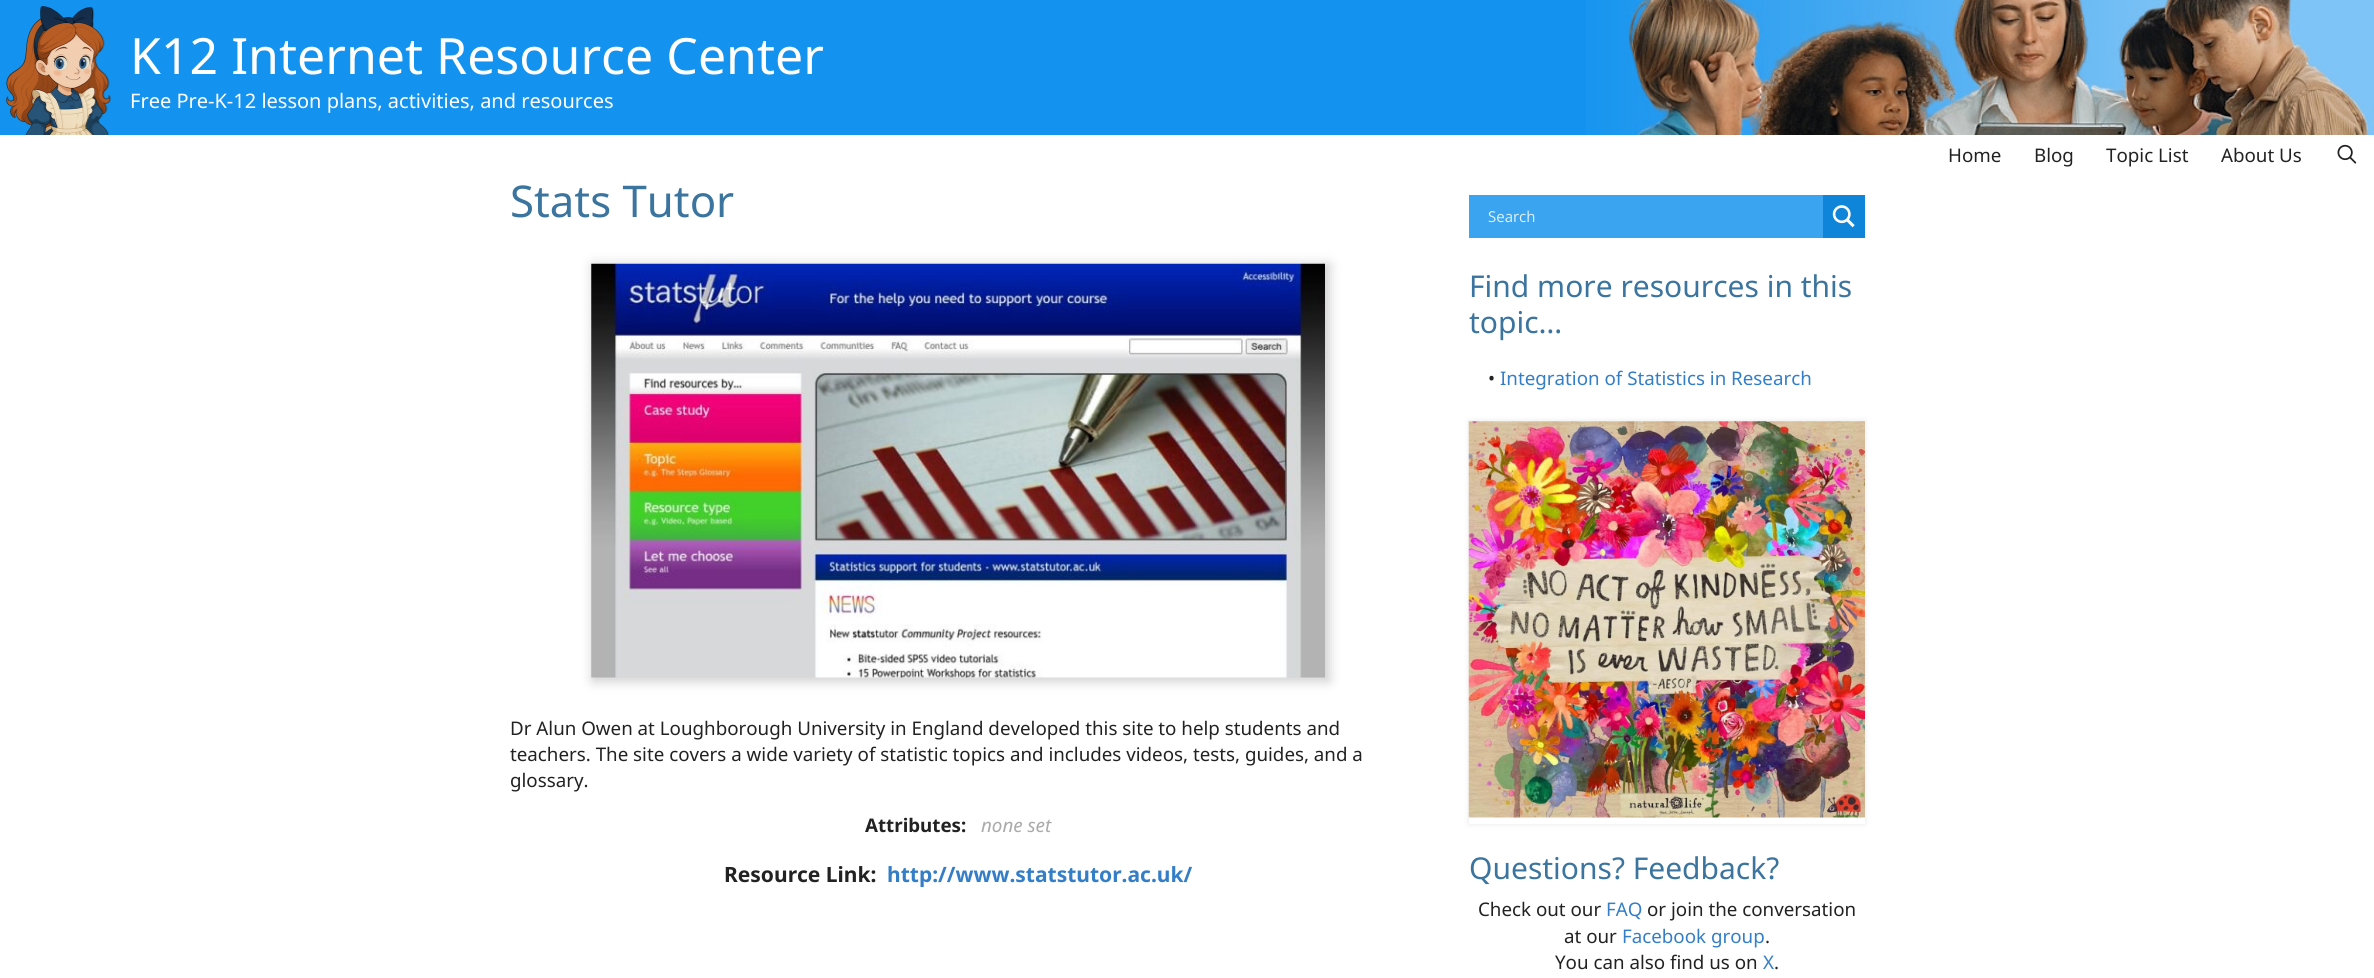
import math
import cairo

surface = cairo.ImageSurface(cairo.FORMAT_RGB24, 2374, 978)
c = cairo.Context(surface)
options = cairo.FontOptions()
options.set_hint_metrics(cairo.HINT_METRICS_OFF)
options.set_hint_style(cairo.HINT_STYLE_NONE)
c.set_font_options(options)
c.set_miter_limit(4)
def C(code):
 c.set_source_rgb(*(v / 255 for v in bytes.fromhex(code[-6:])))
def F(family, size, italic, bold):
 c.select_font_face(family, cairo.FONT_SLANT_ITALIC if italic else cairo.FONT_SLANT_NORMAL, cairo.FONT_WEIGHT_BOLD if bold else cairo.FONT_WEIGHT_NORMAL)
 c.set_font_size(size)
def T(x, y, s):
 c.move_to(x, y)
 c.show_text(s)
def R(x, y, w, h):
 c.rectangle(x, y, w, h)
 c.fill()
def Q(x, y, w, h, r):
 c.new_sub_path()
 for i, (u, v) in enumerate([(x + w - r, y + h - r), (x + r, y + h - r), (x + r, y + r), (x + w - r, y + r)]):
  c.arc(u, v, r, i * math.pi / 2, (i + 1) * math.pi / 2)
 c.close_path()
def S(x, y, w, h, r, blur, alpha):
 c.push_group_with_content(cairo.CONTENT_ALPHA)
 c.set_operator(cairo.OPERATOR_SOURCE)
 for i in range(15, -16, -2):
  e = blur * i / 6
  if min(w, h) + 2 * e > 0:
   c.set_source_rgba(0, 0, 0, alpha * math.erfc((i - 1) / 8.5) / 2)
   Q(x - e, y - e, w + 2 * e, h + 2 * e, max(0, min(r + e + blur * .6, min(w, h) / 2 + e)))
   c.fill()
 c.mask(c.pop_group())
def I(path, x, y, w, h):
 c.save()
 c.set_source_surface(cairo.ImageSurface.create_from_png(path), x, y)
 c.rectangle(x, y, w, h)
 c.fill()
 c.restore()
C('ffffff')
c.paint()
C('1393ef')
R(0,0,1586,135)
I('1.png',1586,0,788,135)
I('2.png',6,6,106,129)
F('Noto Sans',50,0,0)
C('ffffff')
T(130,74,'K12 Internet Resource Center')
F('Noto Sans',20,0,0)
T(130,108,'Free Pre-K-12 lesson plans, activities, and resources')
F('Noto Sans',18.75,0,0)
C('222222')
T(1948,162,'Home')
T(2034,162,'Blog')
T(2106,162,'Topic List')
T(2221,162,'About Us')
I('3.png',2337,144,20,20)
F('Noto Sans',43.75,0,0)
C('3b759f')
T(510,217,'Stats Tutor')
C('cccccc')
S(593,265,736,416,0,6,1)
I('4.png',591,263,734,415)
F('Noto Sans',18.75,0,0)
C('222222')
T(510,735,'Dr Alun Owen at Loughborough University in England developed this site to help students and')
T(510,761,'teachers. The site covers a wide variety of statistic topics and includes videos, tests, guides, and a')
T(510,787,'glossary.')
F('Noto Sans',18.75,0,1)
T(865,832,'Attributes:')
F('Noto Sans',18.75,1,0)
C('aaaaaa')
T(981,832,'none set')
F('Noto Sans',21,0,1)
C('222222')
T(724,882,'Resource Link:')
C('337ec7')
T(887,882,'http://www.statstutor.ac.uk/')
C('3aa4f0')
R(1469,195,354,43)
F('Open Sans',15,0,0)
C('e1f1fd')
T(1488,222,'Search')
C('0f85da')
R(1823,195,42,43)
I('5.png',1832,205,23,23)
F('Noto Sans',30,0,0)
C('3b759f')
T(1469,297,'Find more resources in this')
T(1469,333,'topic…')
F('Noto Sans',18.75,0,0)
C('222222')
T(1488,385,'•')
C('337ec7')
T(1500,385,'Integration of Statistics in Research')
c.save()
c.set_fill_rule(cairo.FILL_RULE_EVEN_ODD)
c.new_path()
c.move_to(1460,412)
c.line_to(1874,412)
c.line_to(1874,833)
c.line_to(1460,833)
c.close_path()
c.move_to(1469,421)
c.line_to(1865,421)
c.line_to(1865,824)
c.line_to(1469,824)
c.close_path()
c.clip()
C('e7e7e7')
S(1469,421,396,403,0,2.5,1)
c.restore()
I('6.png',1468,421,397,397)
F('Noto Sans',30,0,0)
C('3b759f')
T(1469,879,'Questions? Feedback?')
F('Noto Sans',18.75,0,0)
C('222222')
T(1478,916,'Check out our')
C('337ec7')
T(1606,916,'FAQ')
C('222222')
T(1647,916,'or join the conversation')
T(1564,943,'at our')
C('337ec7')
T(1622,943,'Facebook group')
C('222222')
T(1765,943,'.')
T(1555,969,'You can also find us on')
C('337ec7')
T(1763,969,'X')
C('222222')
T(1774,969,'.')
surface.write_to_png('o.png')
